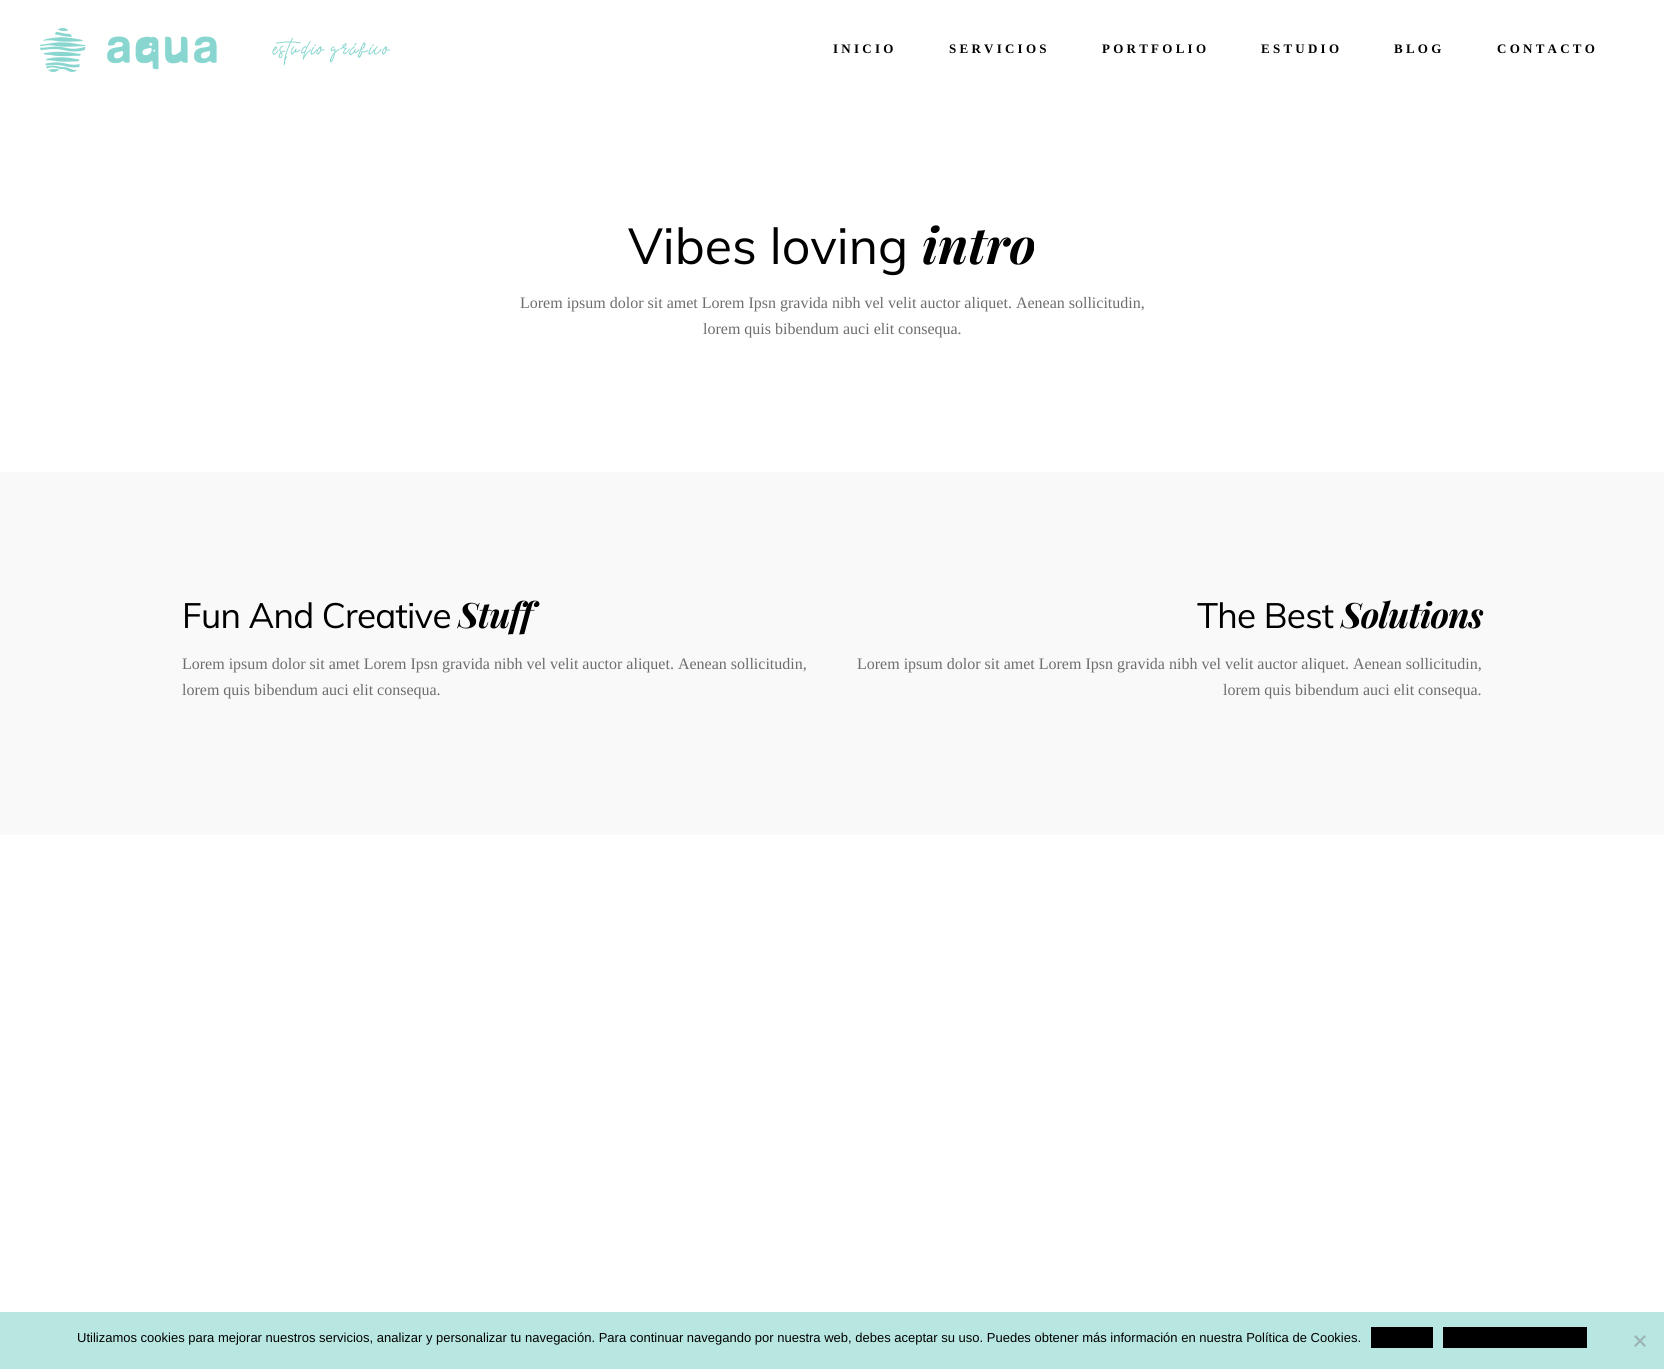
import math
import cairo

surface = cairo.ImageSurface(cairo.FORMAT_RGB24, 1664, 1369)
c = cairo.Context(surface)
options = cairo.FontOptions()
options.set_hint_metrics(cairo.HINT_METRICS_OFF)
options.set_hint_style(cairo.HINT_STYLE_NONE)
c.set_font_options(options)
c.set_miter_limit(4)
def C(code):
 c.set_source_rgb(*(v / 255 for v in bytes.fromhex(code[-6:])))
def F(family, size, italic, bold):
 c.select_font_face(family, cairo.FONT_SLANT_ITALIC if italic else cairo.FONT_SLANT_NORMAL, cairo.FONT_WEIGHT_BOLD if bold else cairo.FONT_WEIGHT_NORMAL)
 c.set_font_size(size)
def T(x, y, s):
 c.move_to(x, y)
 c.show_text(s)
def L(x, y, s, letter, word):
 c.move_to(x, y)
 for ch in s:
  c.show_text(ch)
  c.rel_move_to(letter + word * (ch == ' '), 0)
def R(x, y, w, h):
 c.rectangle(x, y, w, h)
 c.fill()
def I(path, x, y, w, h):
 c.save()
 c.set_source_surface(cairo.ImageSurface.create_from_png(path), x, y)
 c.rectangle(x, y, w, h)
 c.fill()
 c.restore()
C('ffffff')
c.paint()
I('1.png',40,28,350,44)
F('Liberation Serif',13,0,1)
C('000000')
L(833,53,'INICIO',3.25,0)
L(949,53,'SERVICIOS',3.25,0)
L(1102,53,'PORTFOLIO',3.25,0)
L(1261,53,'ESTUDIO',3.25,0)
L(1394,53,'BLOG',3.25,0)
L(1497,53,'CONTACTO',3.25,0)
F('Muli',50,0,0)
T(628,264,'Vibes loving')
F('Playfair Display',50,1,1)
T(922,264,'intro')
F('Liberation Serif',16,0,0)
C('6d6d6d')
T(520,308,'Lorem ipsum dolor sit amet Lorem Ipsn gravida nibh vel velit auctor aliquet. Aenean sollicitudin,')
T(703,334,'lorem quis bibendum auci elit consequa.')
C('f9f9f9')
R(0,472,1664,363)
F('Muli',35,0,0)
C('000000')
L(182,628,'Fun And Creative',-.75,0)
F('Playfair Display',35,1,1)
L(458,628,'Stuff',-.75,0)
F('Liberation Serif',16,0,0)
C('6d6d6d')
T(182,669,'Lorem ipsum dolor sit amet Lorem Ipsn gravida nibh vel velit auctor aliquet. Aenean sollicitudin,')
T(182,695,'lorem quis bibendum auci elit consequa.')
F('Muli',35,0,0)
C('000000')
L(1197,628,'The Best',-.75,0)
F('Playfair Display',35,1,1)
L(1341,628,'Solutions',-.75,0)
F('Liberation Serif',16,0,0)
C('6d6d6d')
T(857,669,'Lorem ipsum dolor sit amet Lorem Ipsn gravida nibh vel velit auctor aliquet. Aenean sollicitudin,')
T(1223,695,'lorem quis bibendum auci elit consequa.')
C('b8e7e2')
R(0,1312,1664,57)
F('Liberation Sans',13,0,0)
C('000000')
T(77,1342,'Utilizamos cookies para mejorar nuestros servicios, analizar y personalizar tu navegación. Para continuar navegando por nuestra web, debes aceptar su uso. Puedes obtener más información en nuestra Política de Cookies.')
R(1371,1327,62,21)
R(1443,1327,144,21)
C('9cb4b1')
c.new_path()
c.move_to(1644.5,1335)
c.line_to(1646,1336.5)
c.line_to(1635.5,1347)
c.line_to(1634,1345.5)
c.close_path()
c.fill()
c.new_path()
c.move_to(1634,1336.5)
c.line_to(1635.5,1335)
c.line_to(1646,1345.5)
c.line_to(1644.5,1347)
c.close_path()
c.fill()
surface.write_to_png('o.png')
